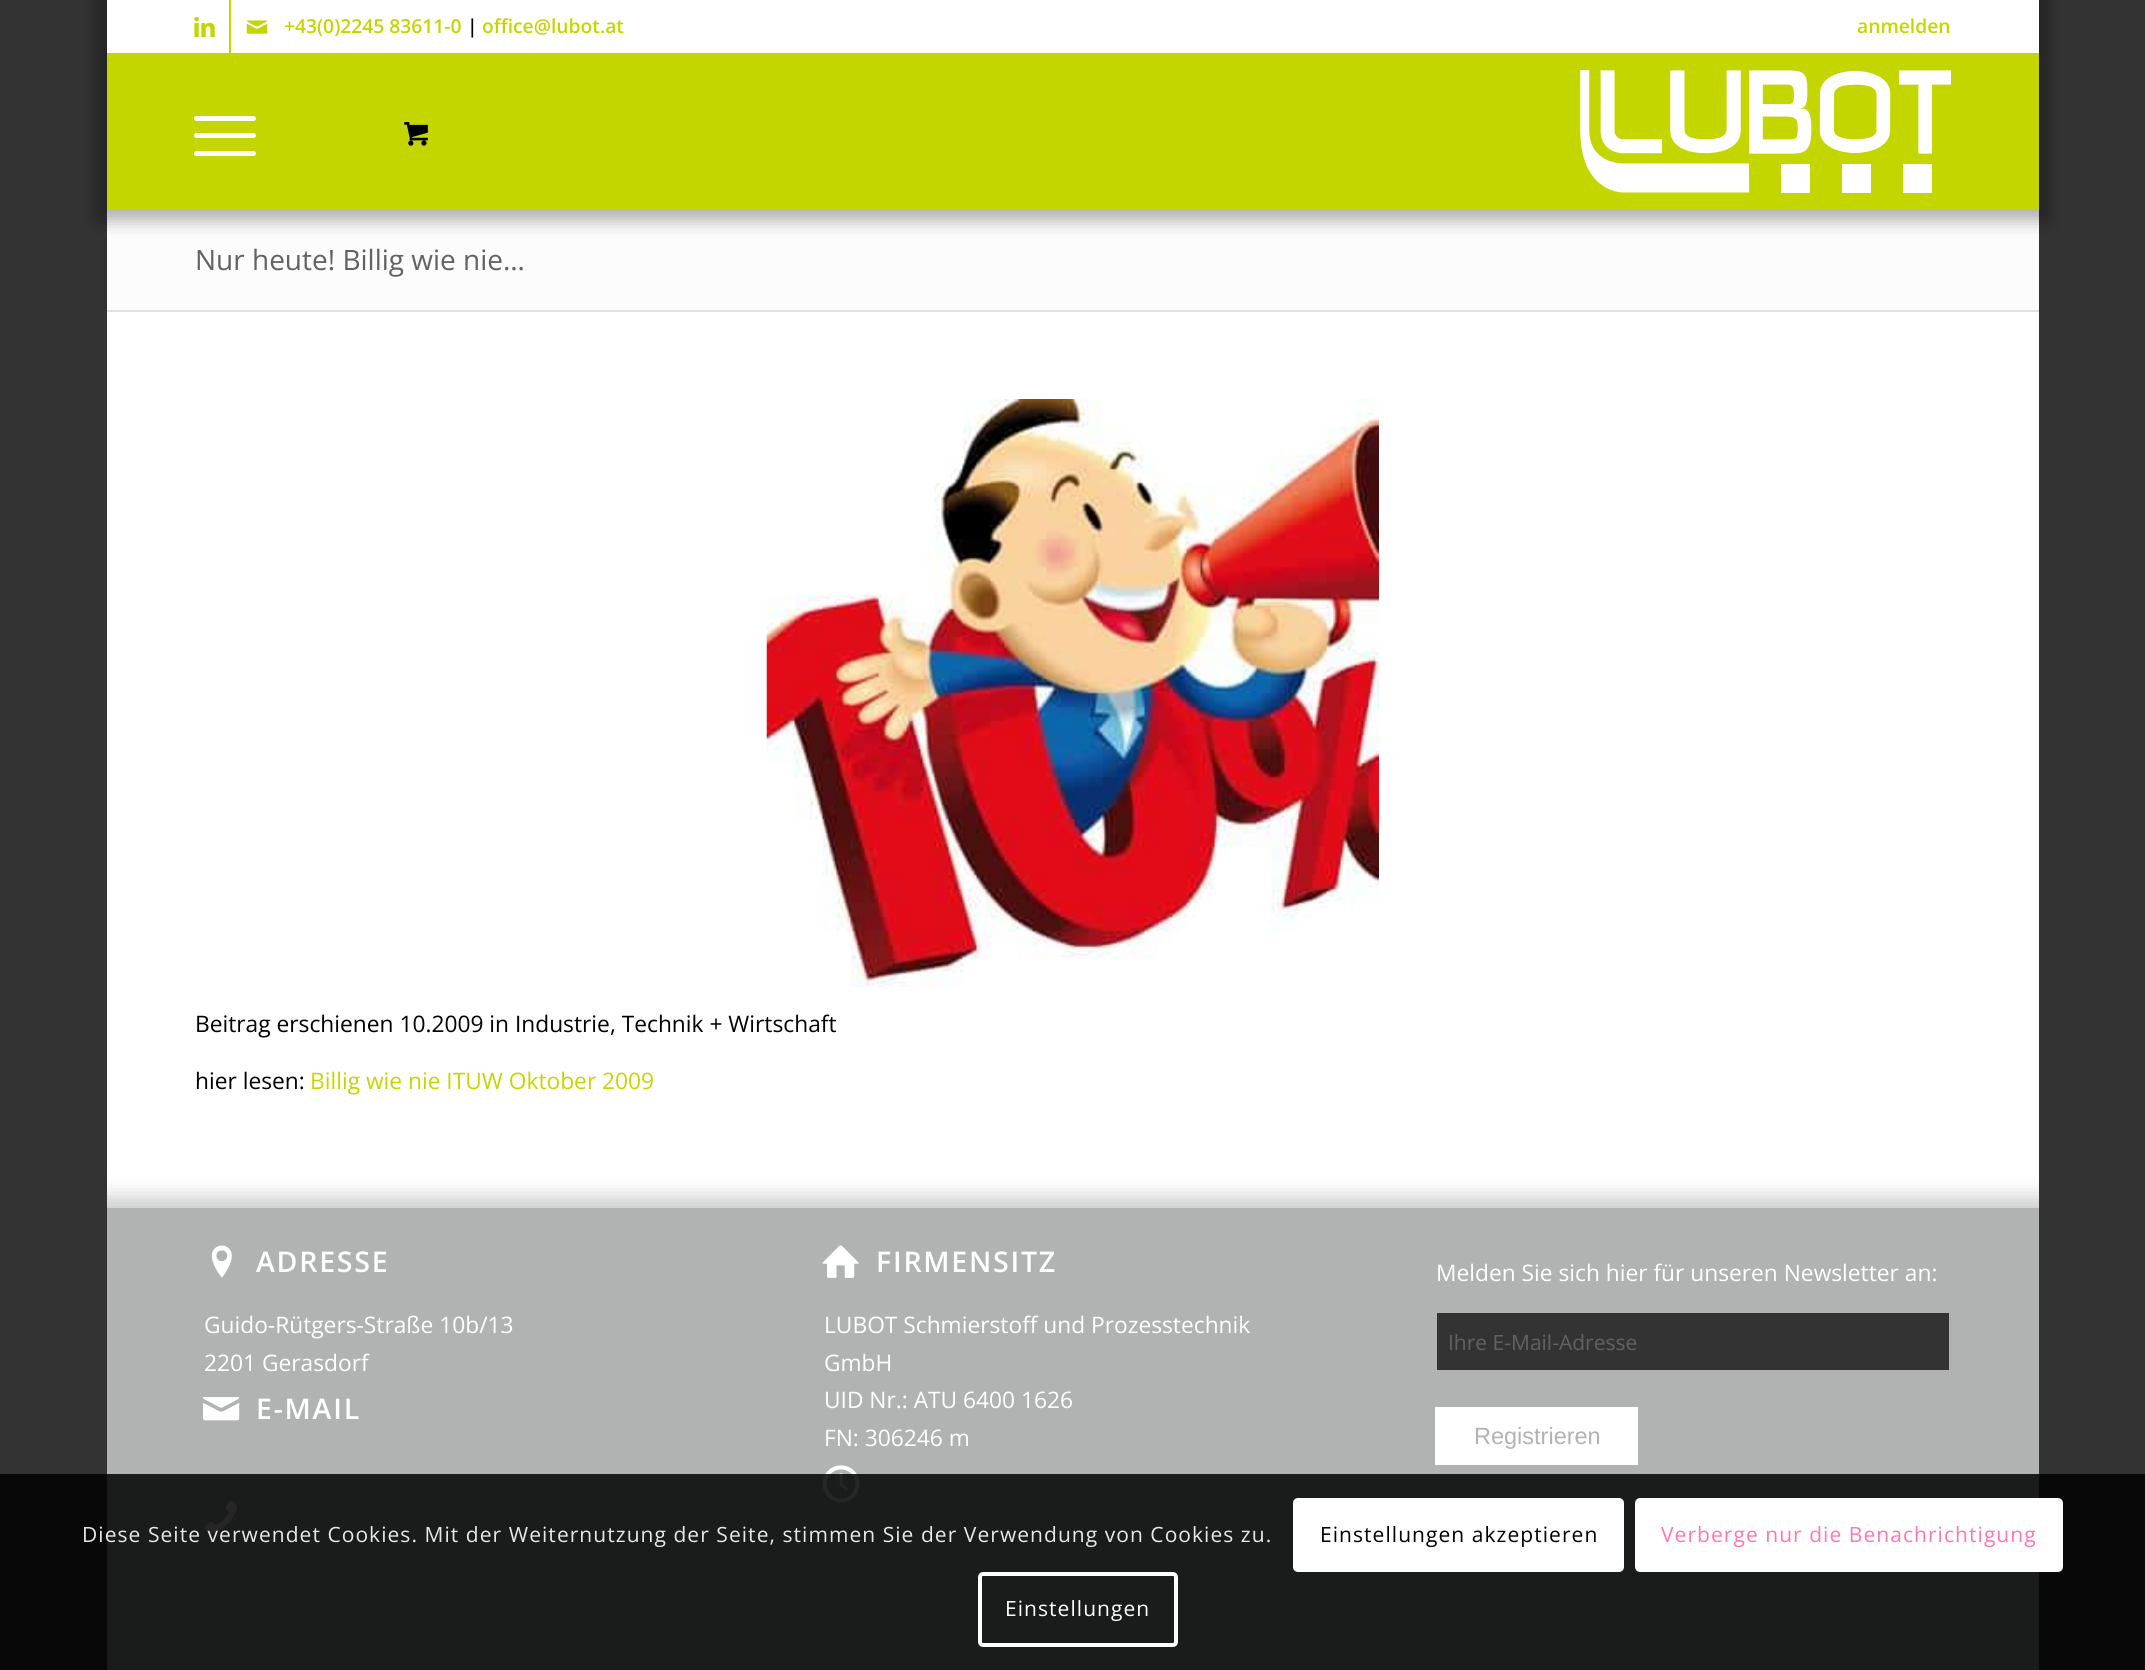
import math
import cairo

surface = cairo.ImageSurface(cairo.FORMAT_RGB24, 2145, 1670)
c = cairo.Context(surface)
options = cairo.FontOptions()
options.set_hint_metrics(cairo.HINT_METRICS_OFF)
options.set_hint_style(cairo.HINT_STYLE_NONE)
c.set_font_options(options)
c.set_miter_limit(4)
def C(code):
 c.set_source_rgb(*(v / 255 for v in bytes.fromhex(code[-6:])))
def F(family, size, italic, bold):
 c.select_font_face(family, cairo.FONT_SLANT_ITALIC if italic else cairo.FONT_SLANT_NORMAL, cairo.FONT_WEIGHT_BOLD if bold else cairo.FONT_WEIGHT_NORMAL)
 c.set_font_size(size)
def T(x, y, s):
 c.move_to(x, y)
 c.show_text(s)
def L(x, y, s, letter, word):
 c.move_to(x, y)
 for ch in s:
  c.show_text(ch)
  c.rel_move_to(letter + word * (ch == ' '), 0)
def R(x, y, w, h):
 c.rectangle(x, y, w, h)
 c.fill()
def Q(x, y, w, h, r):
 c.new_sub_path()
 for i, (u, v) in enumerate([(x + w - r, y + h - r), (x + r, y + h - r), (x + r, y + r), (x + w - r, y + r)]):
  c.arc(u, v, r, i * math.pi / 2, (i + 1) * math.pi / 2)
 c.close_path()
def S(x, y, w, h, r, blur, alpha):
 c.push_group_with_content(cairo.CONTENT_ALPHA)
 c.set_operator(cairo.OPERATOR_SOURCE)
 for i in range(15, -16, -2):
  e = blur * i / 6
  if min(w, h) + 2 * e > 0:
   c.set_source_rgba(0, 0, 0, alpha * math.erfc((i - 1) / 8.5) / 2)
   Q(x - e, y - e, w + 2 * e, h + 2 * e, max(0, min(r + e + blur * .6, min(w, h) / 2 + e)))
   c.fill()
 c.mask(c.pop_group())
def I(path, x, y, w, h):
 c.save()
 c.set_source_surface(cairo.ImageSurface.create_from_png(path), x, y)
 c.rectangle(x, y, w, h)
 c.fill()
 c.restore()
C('333333')
c.paint()
C('fcfcfc')
R(107,210,1932,100)
C('000000')
S(96,-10,1953,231,0,8,.3)
C('ffffff')
R(107,0,1932,53)
C('c4d600')
R(229,0,2,53)
I('1.png',194,16,21,22)
I('2.png',246,20,22,14)
F('Open Sans SemiBold',19.25,0,0)
T(284,33,'+43(0)2245 83611-0')
C('000000')
T(467,33,'|')
C('c4d600')
T(482,33,'office@lubot.at')
T(1857,33,'anmelden')
R(107,53,1932,157)
C('ffffff')
Q(194,133,62,5,2.5)
c.fill()
Q(194,116,62,5,2.5)
c.fill()
Q(194,151,62,5,2.5)
c.fill()
I('3.png',404,122,24,24)
I('4.png',1580,70,371,123)
F('Open Sans',28,0,0)
C('626262')
T(195,270,'Nur heute! Billig wie nie…')
C('ffffff')
R(107,312,1932,896)
C('e1e1e1')
R(107,310,1932,2)
I('5.png',766,399,613,588)
F('Open Sans',22.75,0,0)
C('000000')
T(195,1032,'Beitrag erschienen 10.2009 in Industrie, Technik + Wirtschaft')
T(195,1089,'hier lesen:')
C('c4d600')
T(310,1089,'Billig wie nie ITUW Oktober 2009')
c.save()
c.rectangle(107,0,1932,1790)
c.clip()
C('000000')
S(96,1197,1953,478,0,10.5,.2)
c.restore()
C('b1b3b3')
R(107,1208,1932,462)
I('6.png',211,1245,21,33)
F('Open Sans SemiBold',28.5,0,0)
C('ffffff')
L(256,1272,'ADRESSE',1.75,0)
F('Open Sans',22.75,0,0)
T(204,1333,'Guido-Rütgers-Straße 10b/13')
T(204,1371,'2201 Gerasdorf')
I('7.png',203,1397,37,24)
F('Open Sans SemiBold',28.5,0,0)
L(256,1419,'E-MAIL',1.75,0)
I('8.png',204,1501,33,33)
I('9.png',822,1245,37,33)
L(876,1272,'FIRMENSITZ',1.75,0)
F('Open Sans',22.75,0,0)
T(824,1333,'LUBOT Schmierstoff und Prozesstechnik')
T(824,1371,'GmbH')
T(824,1408,'UID Nr.: ATU 6400 1626')
T(824,1446,'FN: 306246 m')
I('10.png',822,1465,38,38)
T(1436,1281,'Melden Sie sich hier für unseren Newsletter an:')
C('333333')
R(1437,1313,512,57)
F('Open Sans',21,0,0)
C('626262')
T(1448,1350,'Ihre E-Mail-Adresse')
C('ffffff')
R(1435,1407,203,58)
F('Liberation Sans',23.5,0,0)
C('b1b3b3')
T(1474,1444,'Registrieren')
c.set_source_rgba(0,0,0,0.85)
R(0,1474,2145,196)
F('Open Sans',21,0,0)
C('e8e8e8')
L(82,1542,'Diese Seite verwendet Cookies. Mit der Weiternutzung der Seite, stimmen Sie der Verwendung von Cookies zu.',1.05,0)
C('ffffff')
Q(1293,1498,331,74,5)
c.fill()
C('000000')
L(1320,1542,'Einstellungen akzeptieren',1.05,0)
C('ffffff')
Q(1637,1500,424,70,3)
c.fill_preserve()
c.set_line_width(4)
c.stroke()
C('ff75b5')
L(1661,1542,'Verberge nur die Benachrichtigung',1.05,0)
Q(980,1574,196,71,3)
C('ffffff')
c.stroke()
L(1005,1616,'Einstellungen',1.05,0)
surface.write_to_png('o.png')
